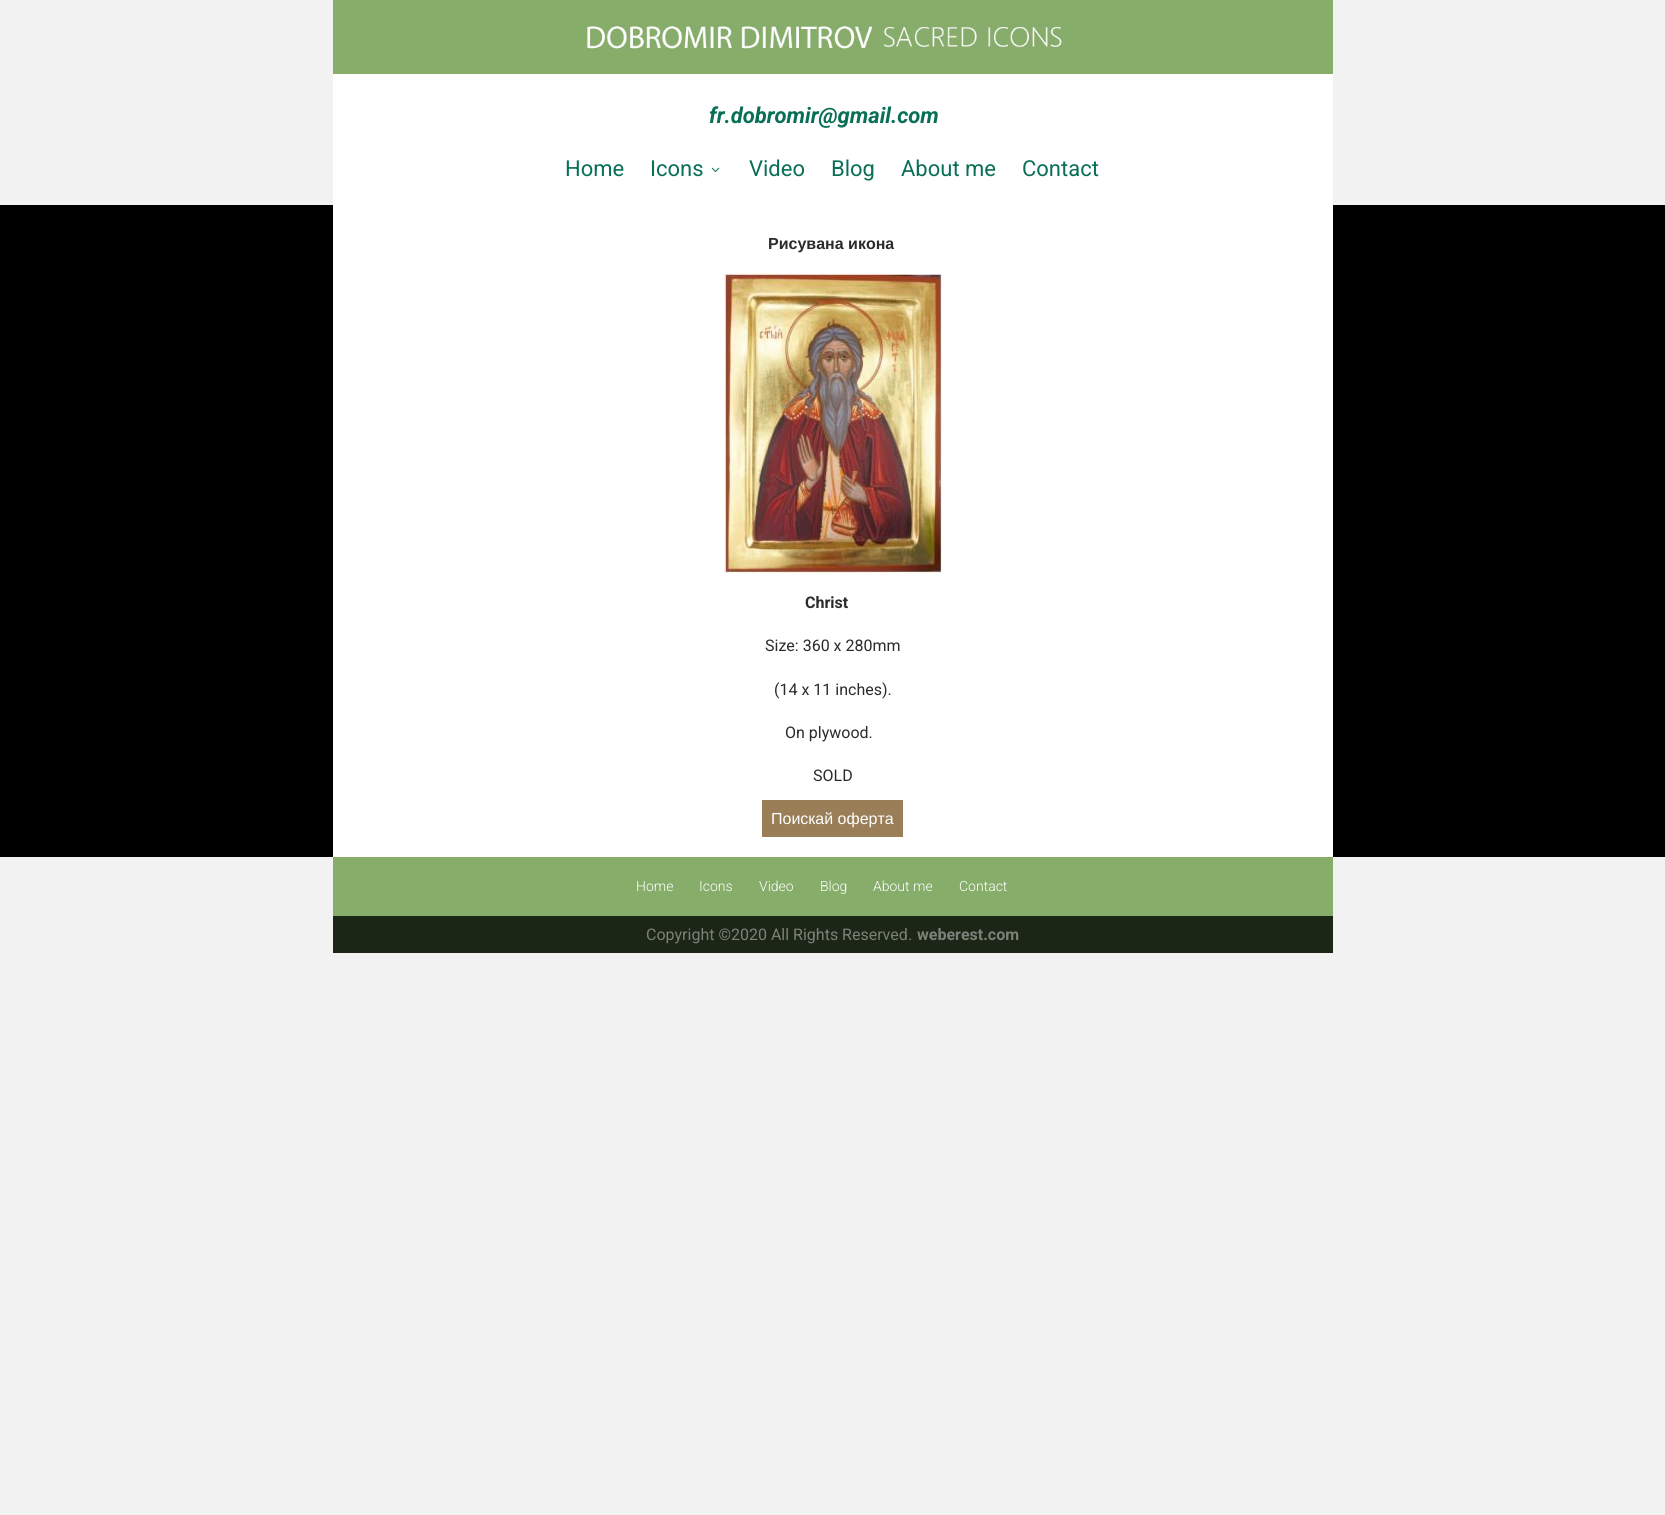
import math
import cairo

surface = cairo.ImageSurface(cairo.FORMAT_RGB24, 1665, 1515)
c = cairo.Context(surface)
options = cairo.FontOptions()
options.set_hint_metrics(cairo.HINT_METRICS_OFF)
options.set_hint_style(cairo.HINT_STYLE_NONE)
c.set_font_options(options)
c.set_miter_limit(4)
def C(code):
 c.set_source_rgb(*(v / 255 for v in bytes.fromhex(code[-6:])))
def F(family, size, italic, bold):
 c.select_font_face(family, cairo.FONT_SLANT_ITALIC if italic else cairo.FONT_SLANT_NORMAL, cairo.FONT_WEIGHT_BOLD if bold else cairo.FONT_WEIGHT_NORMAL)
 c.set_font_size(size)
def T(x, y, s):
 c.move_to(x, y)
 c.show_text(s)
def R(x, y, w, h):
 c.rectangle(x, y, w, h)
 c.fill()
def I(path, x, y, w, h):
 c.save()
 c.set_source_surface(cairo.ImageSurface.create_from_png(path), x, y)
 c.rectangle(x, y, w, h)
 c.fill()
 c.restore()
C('f2f2f2')
c.paint()
C('87ad6b')
R(333,0,1000,74)
I('1.png',582,23,482,29)
C('000000')
R(0,205,1665,652)
C('ffffff')
R(333,74,1000,783)
F('Roboto',22,1,1)
C('096f55')
T(709,123,'fr.dobromir@gmail.com')
F('Roboto',22,0,0)
T(565,176,'Home')
T(650,176,'Icons')
I('2.png',711,167,9,5)
T(749,176,'Video')
T(831,176,'Blog')
T(901,176,'About me')
T(1022,176,'Contact')
F('Liberation Sans',16,0,1)
C('2a2b2d')
T(768,249,'Рисувана икона')
I('3.png',724,273,218,300)
F('Roboto',16,0,1)
T(805,608,'Christ')
F('Roboto',16,0,0)
T(765,651,'Size: 360 x 280mm')
T(774,695,'(14 x 11 inches).')
T(785,738,'On plywood.')
T(813,781,'SOLD')
C('9a7e58')
R(762,800,141,37)
F('Liberation Sans',16,0,0)
C('ffffff')
T(771,824,'Поискай оферта')
C('87ad6b')
R(333,857,1000,59)
F('Roboto Light',14,0,0)
C('ffffff')
T(636,891,'Home')
T(699,891,'Icons')
T(759,891,'Video')
T(820,891,'Blog')
T(873,891,'About me')
T(959,891,'Contact')
C('1c2617')
R(333,916,1000,37)
F('Roboto',16,0,0)
C('7b8178')
T(646,940,'Copyright ©2020 All Rights Reserved.')
F('Roboto',16,0,1)
T(917,940,'weberest.com')
surface.write_to_png('o.png')
